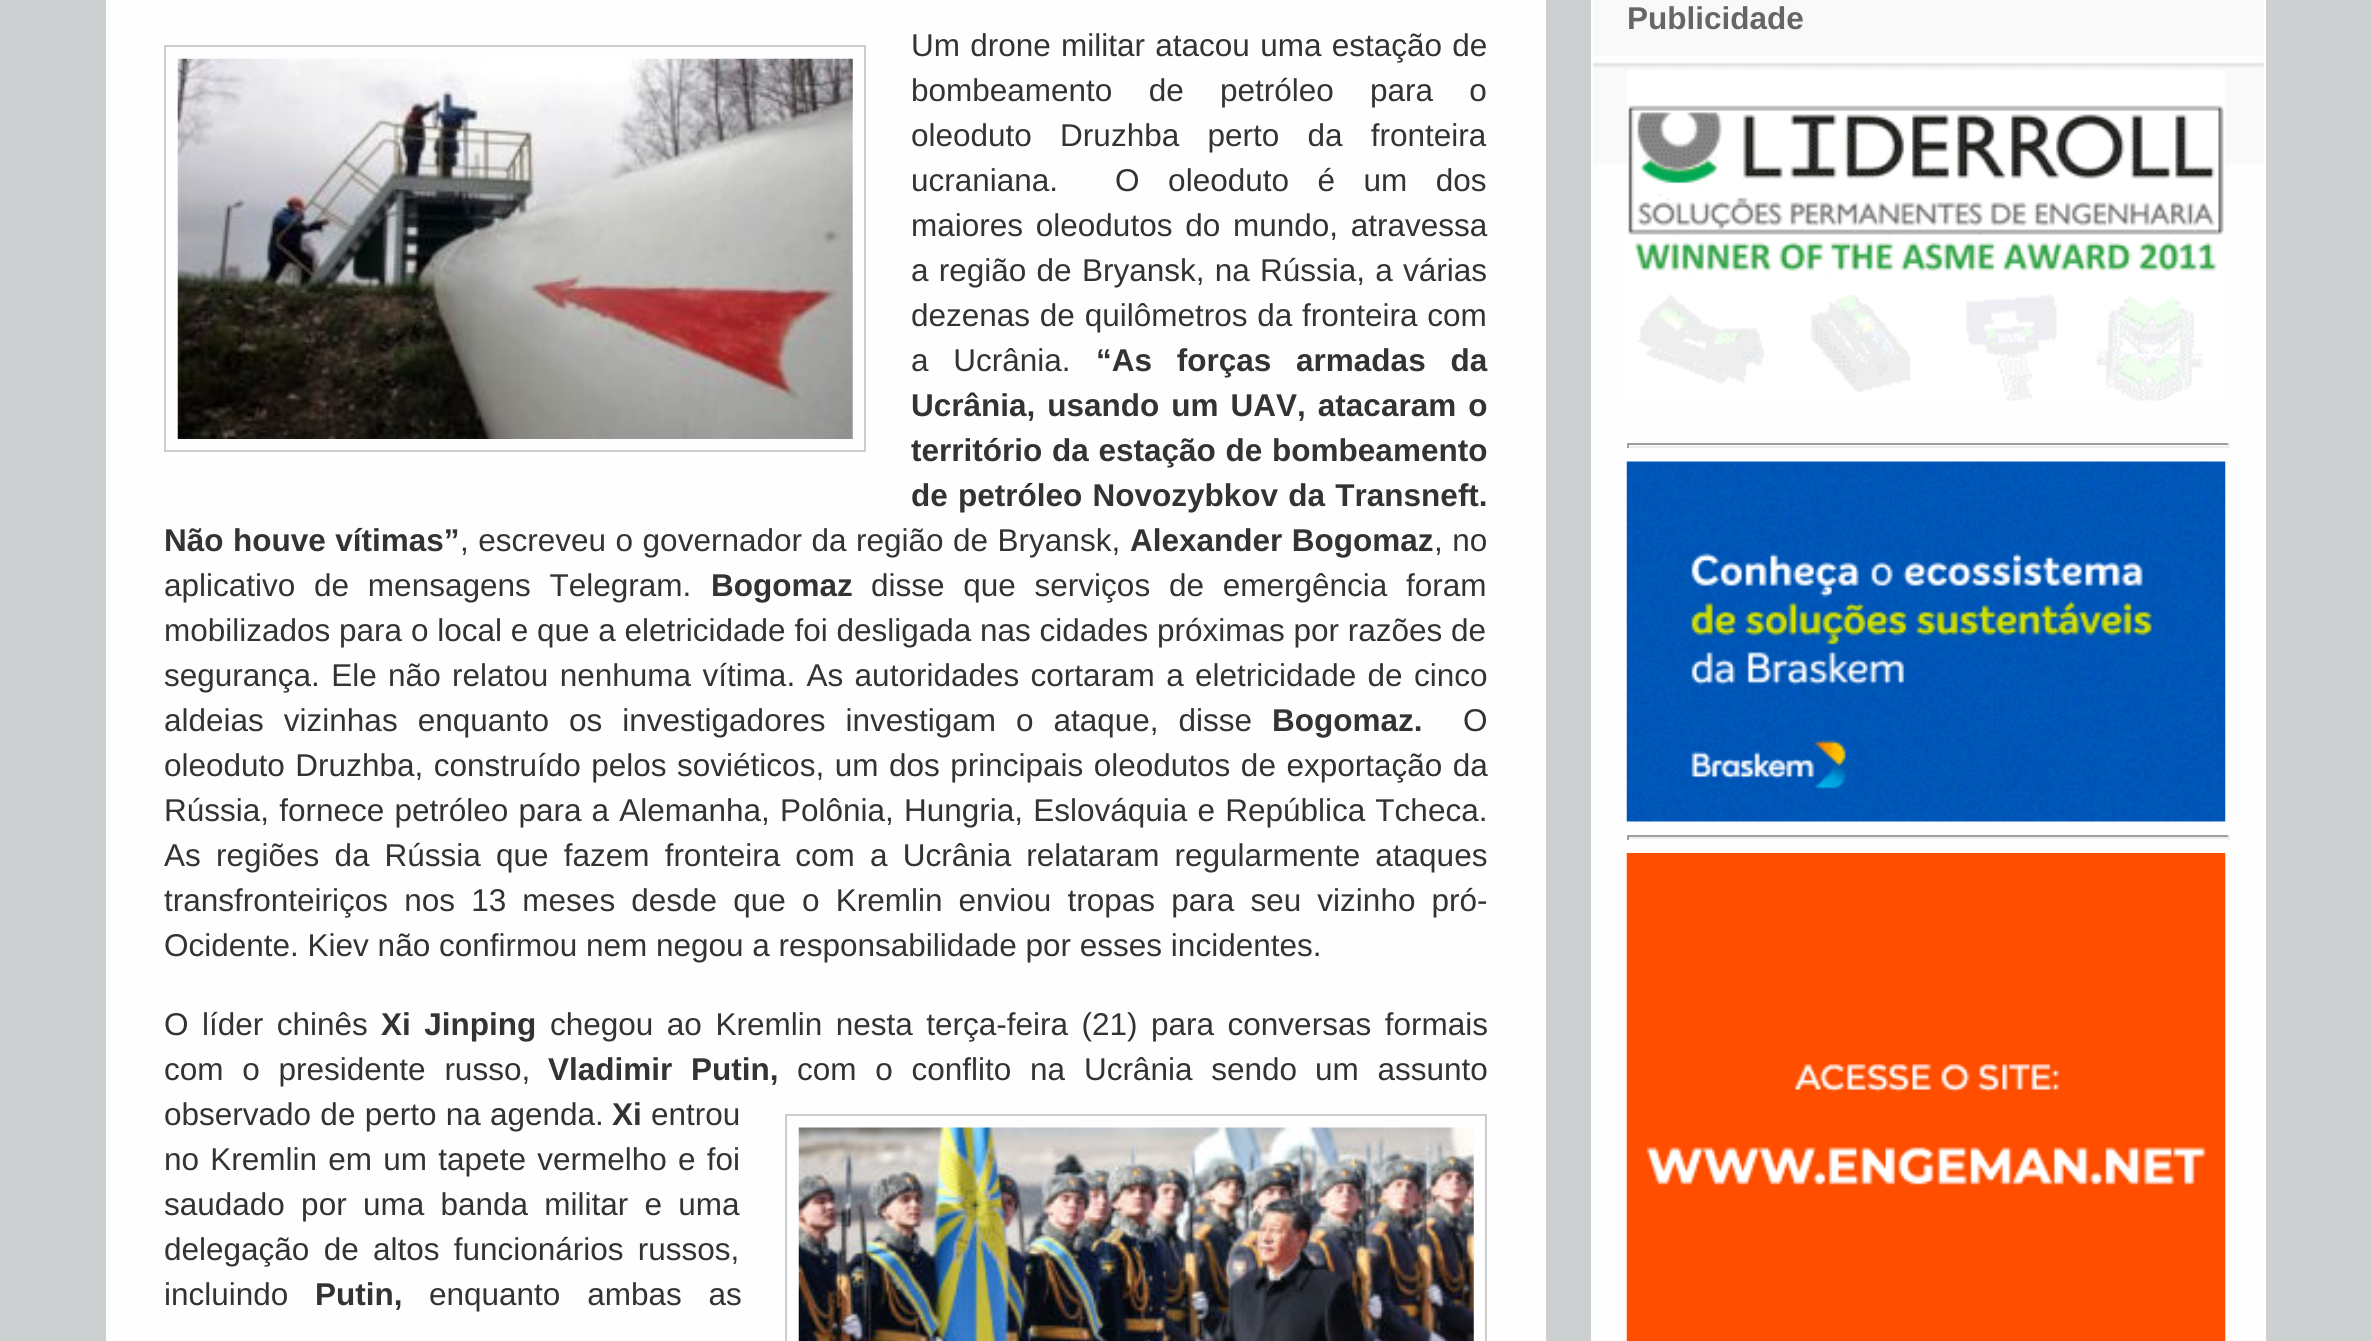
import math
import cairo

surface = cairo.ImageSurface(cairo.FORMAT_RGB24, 2371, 1341)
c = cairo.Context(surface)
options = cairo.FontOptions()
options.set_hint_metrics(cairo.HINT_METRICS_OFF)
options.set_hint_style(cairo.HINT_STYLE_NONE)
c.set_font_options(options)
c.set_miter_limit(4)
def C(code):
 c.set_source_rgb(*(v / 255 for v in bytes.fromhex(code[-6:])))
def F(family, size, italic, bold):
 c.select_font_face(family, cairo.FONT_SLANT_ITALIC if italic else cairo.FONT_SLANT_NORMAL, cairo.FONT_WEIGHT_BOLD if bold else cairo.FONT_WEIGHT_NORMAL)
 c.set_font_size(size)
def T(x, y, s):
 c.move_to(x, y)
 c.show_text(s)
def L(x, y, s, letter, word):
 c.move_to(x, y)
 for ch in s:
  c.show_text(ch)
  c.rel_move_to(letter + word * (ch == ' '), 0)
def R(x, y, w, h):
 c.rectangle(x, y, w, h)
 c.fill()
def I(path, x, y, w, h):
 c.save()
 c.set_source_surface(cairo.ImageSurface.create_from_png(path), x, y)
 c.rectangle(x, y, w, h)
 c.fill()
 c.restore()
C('cdd0d1')
c.paint()
C('fefefe')
R(1593,164,671,1177)
C('f9f9f9')
R(1593,0,671,164)
c.rectangle(1592,-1,673,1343)
C('ffffff')
c.stroke()
I('1.png',1593,56,671,12)
F('Liberation Sans',31.5,0,1)
C('666666')
T(1627,29,'Publicidade')
I('2.png',1627,70,598,331)
C('9f9f9f')
R(1627,443,603,2)
C('eeeeee')
R(2228,443,2,5)
R(1627,446,603,2)
C('9f9f9f')
R(1627,443,2,5)
I('3.png',1626,461,600,361)
R(1627,835,603,2)
C('eeeeee')
R(2228,835,2,5)
R(1627,837,603,2)
C('9f9f9f')
R(1627,835,2,5)
I('4.png',1626,853,600,488)
C('fefefe')
R(106,0,1440,1341)
c.rectangle(165,46,700,405)
C('cccccc')
c.stroke()
I('5.png',177,58,676,381)
F('Liberation Sans',31.5,0,0)
C('333333')
L(911,56,'Um drone militar atacou uma estação de',0,1.5)
L(911,101,'bombeamento de petróleo para o',0,27.5)
L(911,146,'oleoduto Druzhba perto da fronteira',0,19.5)
L(911,191,'ucraniana.  O oleoduto é um dos',0,19.75)
L(911,236,'maiores oleodutos do mundo, atravessa',0,4)
L(911,281,'a região de Bryansk, na Rússia, a várias',0,1.5)
L(911,326,'dezenas de quilômetros da fronteira com',0,1)
L(911,371,'a Ucrânia.',0,16)
F('Liberation Sans',31.5,0,1)
L(1096,371,'“As forças armadas da',0,16)
L(911,416,'Ucrânia, usando um UAV, atacaram o',0,3.25)
L(911,461,'território da estação de bombeamento',0,1)
L(911,506,'de petróleo Novozybkov da Transneft.',0,1.5)
L(164,551,'Não houve vítimas”',0,.75)
F('Liberation Sans',31.5,0,0)
L(460,551,', escreveu o governador da região de Bryansk,',0,.75)
F('Liberation Sans',31.5,0,1)
L(1130,551,'Alexander Bogomaz',0,.75)
F('Liberation Sans',31.5,0,0)
L(1434,551,', no',0,.75)
L(164,596,'aplicativo de mensagens Telegram.',0,10)
F('Liberation Sans',31.5,0,1)
T(711,596,'Bogomaz')
F('Liberation Sans',31.5,0,0)
L(871,596,'disse que serviços de emergência foram',0,10)
T(164,641,'mobilizados para o local e que a eletricidade foi desligada nas cidades próximas por razões de')
L(164,686,'segurança. Ele não relatou nenhuma vítima. As autoridades cortaram a eletricidade de cinco',0,2.6)
L(164,731,'aldeias vizinhas enquanto os investigadores investigam o ataque, disse',0,11.25)
F('Liberation Sans',31.5,0,1)
T(1272,731,'Bogomaz.')
F('Liberation Sans',31.5,0,0)
T(1463,731,'O')
L(164,776,'oleoduto Druzhba, construído pelos soviéticos, um dos principais oleodutos de exportação da',0,1.75)
L(164,821,'Rússia, fornece petróleo para a Alemanha, Polônia, Hungria, Eslováquia e República Tcheca.',0,1.4)
L(164,866,'As regiões da Rússia que fazem fronteira com a Ucrânia relataram regularmente ataques',0,6.4)
L(164,911,'transfronteiriços nos 13 meses desde que o Kremlin enviou tropas para seu vizinho pró-',0,7.4)
T(164,956,'Ocidente. Kiev não confirmou nem negou a responsabilidade por esses incidentes.')
L(164,1035,'O líder chinês',0,4.75)
F('Liberation Sans',31.5,0,1)
L(381,1035,'Xi Jinping',0,4.75)
F('Liberation Sans',31.5,0,0)
L(550,1035,'chegou ao Kremlin nesta terça-feira (21) para conversas formais',0,4.75)
L(164,1080,'com o presidente russo,',0,10)
F('Liberation Sans',31.5,0,1)
L(548,1080,'Vladimir Putin,',0,10)
F('Liberation Sans',31.5,0,0)
L(797,1080,'com o conflito na Ucrânia sendo',0,10)
L(1315,1080,'um assunto',0,10)
L(164,1125,'observado de perto na agenda.',0,.5)
F('Liberation Sans',31.5,0,1)
T(612,1125,'Xi')
F('Liberation Sans',31.5,0,0)
T(651,1125,'entrou')
c.rectangle(786,1115,700,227)
C('cccccc')
c.stroke()
I('6.png',798,1127,676,214)
C('333333')
L(164,1170,'no Kremlin em um tapete vermelho e foi',0,2.5)
L(164,1215,'saudado por uma banda militar e uma',0,7.5)
L(164,1260,'delegação de altos funcionários russos,',0,5.5)
T(164,1305,'incluindo')
F('Liberation Sans',31.5,0,1)
T(315,1305,'Putin,')
F('Liberation Sans',31.5,0,0)
L(429,1305,'enquanto ambas as',0,18)
surface.write_to_png('o.png')
